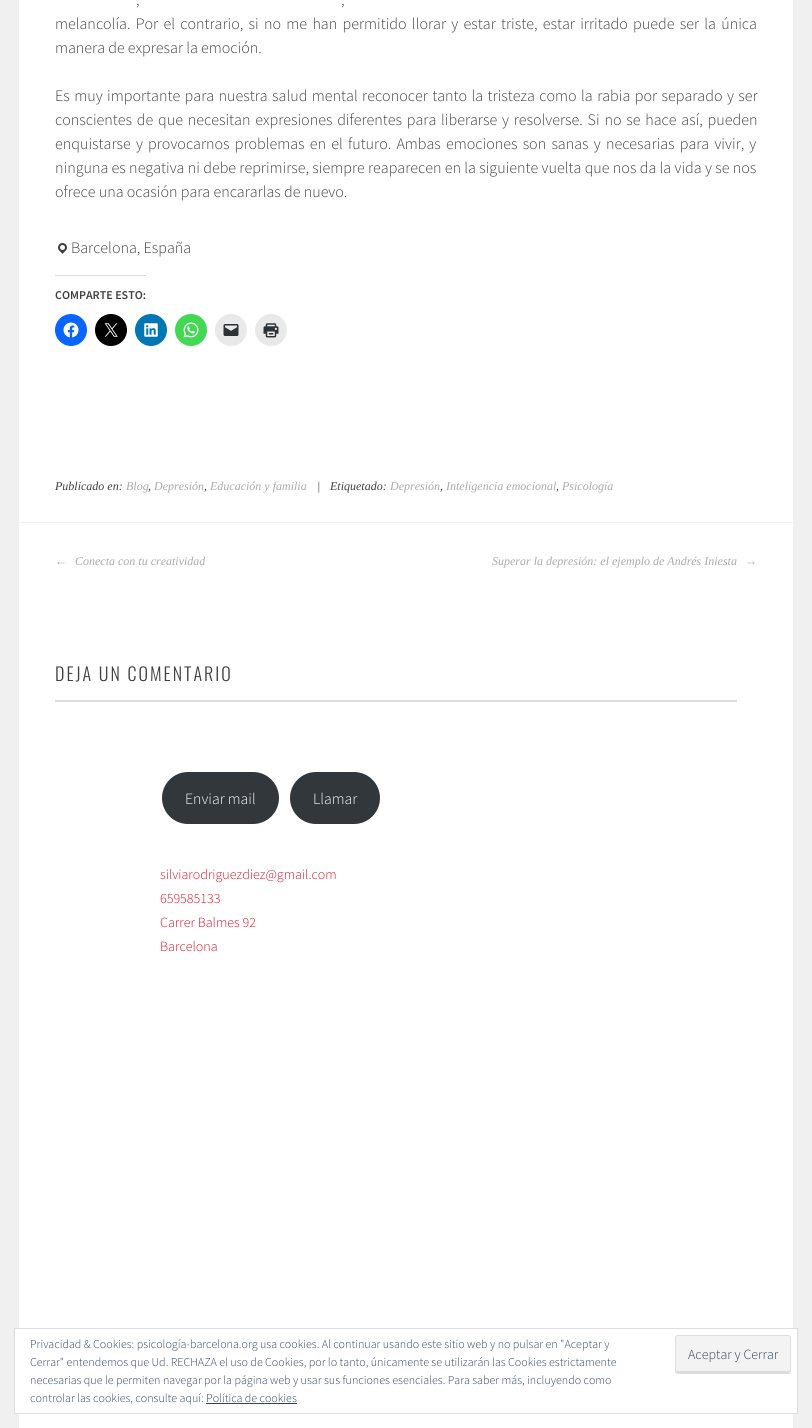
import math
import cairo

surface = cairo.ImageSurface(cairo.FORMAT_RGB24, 812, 1428)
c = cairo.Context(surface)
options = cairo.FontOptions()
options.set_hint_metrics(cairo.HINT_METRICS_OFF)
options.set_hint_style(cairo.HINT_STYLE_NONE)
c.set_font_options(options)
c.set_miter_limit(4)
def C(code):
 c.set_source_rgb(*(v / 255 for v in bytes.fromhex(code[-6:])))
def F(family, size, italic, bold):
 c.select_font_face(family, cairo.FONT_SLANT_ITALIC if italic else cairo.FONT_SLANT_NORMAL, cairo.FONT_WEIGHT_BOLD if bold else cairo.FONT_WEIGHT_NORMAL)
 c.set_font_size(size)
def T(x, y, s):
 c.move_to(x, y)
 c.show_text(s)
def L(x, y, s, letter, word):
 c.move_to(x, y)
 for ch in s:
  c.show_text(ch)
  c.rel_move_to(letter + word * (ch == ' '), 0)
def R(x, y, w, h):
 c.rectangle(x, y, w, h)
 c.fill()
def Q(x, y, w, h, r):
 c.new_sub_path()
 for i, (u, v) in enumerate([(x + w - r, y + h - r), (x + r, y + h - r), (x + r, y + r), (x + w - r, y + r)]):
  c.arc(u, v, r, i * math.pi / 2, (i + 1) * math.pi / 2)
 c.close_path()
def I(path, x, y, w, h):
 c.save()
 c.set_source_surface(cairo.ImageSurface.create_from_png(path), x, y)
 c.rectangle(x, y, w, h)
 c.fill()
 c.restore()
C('f0f0f0')
c.paint()
C('ffffff')
R(19,0,774,1428)
F('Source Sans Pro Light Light',16,0,0)
C('404040')
L(136,5,',',0,4)
L(341,5,',',0,4)
L(55,29,'melancolía. Por el contrario, si no me han permitido llorar y estar triste, estar irritado puede ser la única',0,2.1)
T(55,53,'manera de expresar la emoción.')
L(55,101,'Es muy importante para nuestra salud mental reconocer tanto la tristeza como la rabia por separado y ser',0,1.25)
L(55,125,'conscientes de que necesitan expresiones diferentes para liberarse y resolverse. Si no se hace así, pueden',0,1.6)
L(55,149,'enquistarse y provocarnos problemas en el futuro. Ambas emociones son sanas y necesarias para vivir, y',0,2)
L(55,173,'ninguna es negativa ni debe reprimirse, siempre reaparecen en la siguiente vuelta que nos da la vida y se nos',0,.1)
T(55,197,'ofrece una ocasión para encararlas de nuevo.')
I('1.png',58,243,9,11)
T(71,253,'Barcelona, España')
C('dcdcde')
R(55,275,91,1)
F('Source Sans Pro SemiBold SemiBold',12,0,0)
C('404040')
T(55,299,'COMPARTE ESTO:')
C('0866ff')
c.new_path()
c.arc(71,330,16,0,2 * math.pi)
c.fill()
I('2.png',63,322,16,16)
C('000000')
c.arc(111,330,16,0,2 * math.pi)
c.fill()
I('3.png',104,323,14,14)
C('0077b5')
c.arc(151,330,16,0,2 * math.pi)
c.fill()
I('4.png',144,323,14,14)
C('43d854')
c.arc(191,330,16,0,2 * math.pi)
c.fill()
I('5.png',183,322,16,16)
C('e9e9e9')
c.arc(231,330,16,0,2 * math.pi)
c.fill()
I('6.png',223,324,16,12)
c.arc(271,330,16,0,2 * math.pi)
c.fill()
I('7.png',263,323,16,15)
F('Liberation Serif',12,1,0)
C('404040')
T(55,490,'Publicado en:')
C('aaaaaa')
T(126,490,'Blog')
C('404040')
T(148,490,',')
C('aaaaaa')
T(154,490,'Depresión')
C('404040')
T(204,490,',')
C('aaaaaa')
T(210,490,'Educación y familia')
C('404040')
T(317,490,'|')
T(330,490,'Etiquetado:')
C('aaaaaa')
T(390,490,'Depresión')
C('404040')
T(440,490,',')
C('aaaaaa')
T(446,490,'Inteligencia emocional')
C('404040')
T(556,490,',')
C('aaaaaa')
T(562,490,'Psicología')
C('f2f2f2')
R(19,522,774,1)
C('aaaaaa')
T(55,565,'←')
T(75,565,'Conecta con tu creatividad')
T(492,565,'Superar la depresión: el ejemplo de Andrés Iniesta')
T(745,565,'→')
F('Oswald Light',18,0,0)
C('404040')
L(55,681,'DEJA UN COMENTARIO',2,0)
C('dcdcde')
R(55,700,682,2)
C('32373c')
Q(161,771,119,54,27)
c.fill_preserve()
C('ffffff')
c.stroke()
F('Source Sans Pro Light Light',15.75,0,0)
T(185,804,'Enviar mail')
C('32373c')
Q(289,771,92,54,27)
c.fill_preserve()
C('ffffff')
c.stroke()
T(313,804,'Llamar')
F('Source Sans Pro Light Light',14,0,0)
C('e1122a')
T(160,879,'silviarodriguezdiez@gmail.com')
T(160,903,'659585133')
T(160,927,'Carrer Balmes 92')
T(160,951,'Barcelona')
C('ffffff')
c.rectangle(14.5,1328.5,783,85)
c.fill_preserve()
C('dedede')
c.set_line_width(1)
c.stroke()
F('Source Sans Pro Light Light',12,0,0)
C('2e4467')
T(30,1348,'Privacidad & Cookies: psicología-barcelona.org usa cookies. Al continuar usando este sitio web y no pulsar en "Aceptar y')
T(30,1366,'Cerrar" entendemos que Ud. RECHAZA el uso de Cookies, por lo tanto, únicamente se utilizarán las Cookies estrictamente')
C('f3f3f3')
Q(675,1335,116,39,3)
c.fill()
C('dbdbdb')
c.new_path()
c.move_to(676,1369)
c.line_to(676,1371)
c.curve_to(676,1372,677,1373,678,1373)
c.line_to(788,1373)
c.curve_to(789,1373,790,1372,790,1371)
c.line_to(790,1369)
c.curve_to(790,1370,789,1371,788,1371)
c.line_to(678,1371)
c.curve_to(677,1371,676,1370,676,1369)
c.close_path()
c.fill()
Q(675.5,1335.5,115,38,2.5)
C('dedede')
c.stroke()
F('Source Sans Pro Light Light',14,0,0)
C('2e4453')
T(688,1359,'Aceptar y Cerrar')
F('Source Sans Pro Light Light',12,0,0)
C('2e4467')
T(30,1384,'necesarias que le permiten navegar por la página web y usar sus funciones esenciales. Para saber más, incluyendo como')
T(30,1402,'controlar las cookies, consulte aquí: Política de cookies')
R(206,1403,91,1)
surface.write_to_png('o.png')
